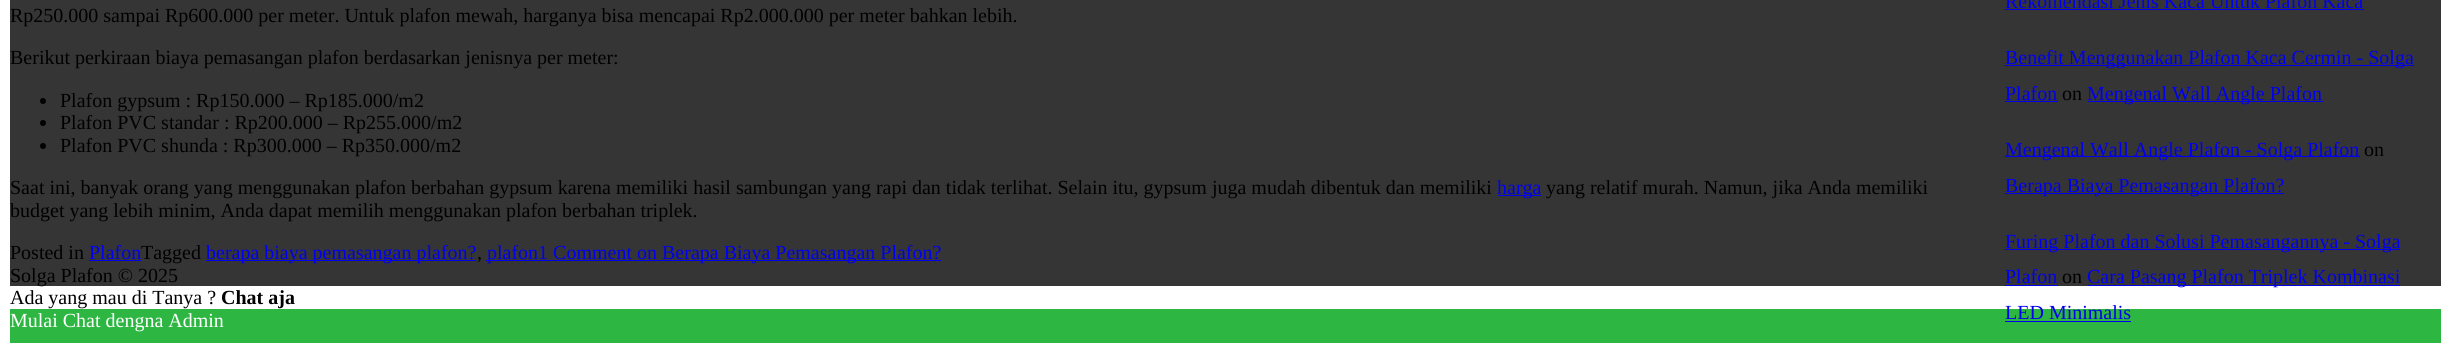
import math
import cairo

surface = cairo.ImageSurface(cairo.FORMAT_RGB24, 2451, 343)
c = cairo.Context(surface)
options = cairo.FontOptions()
options.set_hint_metrics(cairo.HINT_METRICS_OFF)
options.set_hint_style(cairo.HINT_STYLE_NONE)
c.set_font_options(options)
c.set_miter_limit(4)
def C(code):
 c.set_source_rgb(*(v / 255 for v in bytes.fromhex(code[-6:])))
def F(family, size, italic, bold):
 c.select_font_face(family, cairo.FONT_SLANT_ITALIC if italic else cairo.FONT_SLANT_NORMAL, cairo.FONT_WEIGHT_BOLD if bold else cairo.FONT_WEIGHT_NORMAL)
 c.set_font_size(size)
def T(x, y, s):
 c.move_to(x, y)
 c.show_text(s)
def R(x, y, w, h):
 c.rectangle(x, y, w, h)
 c.fill()
C('ffffff')
c.paint()
C('353535')
R(10,0,2431,286)
F('Liberation Serif',20,0,0)
C('000000')
T(10,22,'Rp250.000 sampai Rp600.000 per meter. Untuk plafon mewah, harganya bisa mencapai Rp2.000.000 per meter bahkan lebih.')
T(10,64,'Berikut perkiraan biaya pemasangan plafon berdasarkan jenisnya per meter:')
c.new_path()
c.arc(43,101,3,0,2 * math.pi)
c.fill()
T(60,107,'Plafon gypsum : Rp150.000 – Rp185.000/m2')
c.new_path()
c.arc(43,123,3,0,2 * math.pi)
c.fill()
T(60,129,'Plafon PVC standar : Rp200.000 – Rp255.000/m2')
c.new_path()
c.arc(43,146,3,0,2 * math.pi)
c.fill()
T(60,152,'Plafon PVC shunda : Rp300.000 – Rp350.000/m2')
T(10,194,'Saat ini, banyak orang yang menggunakan plafon berbahan gypsum karena memiliki hasil sambungan yang rapi dan tidak terlihat. Selain itu, gypsum juga mudah dibentuk dan memiliki')
C('0000ee')
R(1498,195,43,1)
T(1497,194,'harga')
C('000000')
T(1546,194,'yang relatif murah. Namun, jika Anda memiliki')
T(10,217,'budget yang lebih minim, Anda dapat memilih menggunakan plafon berbahan triplek.')
T(10,259,'Posted in')
C('0000ee')
T(89,259,'Plafon')
R(89,260,52,1)
C('000000')
T(141,259,'Tagged')
C('0000ee')
R(206,260,270,1)
T(206,259,'berapa biaya pemasangan plafon?')
C('000000')
T(477,259,',')
C('0000ee')
R(486,260,145,1)
T(487,259,'plafon1 Comment')
R(631,260,310,1)
T(637,259,'on Berapa Biaya Pemasangan Plafon?')
T(2005,8,'Rekomendasi Jenis Kaca Untuk Plafon Kaca')
R(2005,9,359,1)
R(2005,65,409,1)
T(2005,64,'Benefit Menggunakan Plafon Kaca Cermin - Solga')
T(2005,100,'Plafon')
R(2005,101,53,1)
C('000000')
T(2062,100,'on')
C('0000ee')
R(2088,101,235,1)
T(2087,100,'Mengenal Wall Angle Plafon')
R(2005,156,355,1)
T(2005,156,'Mengenal Wall Angle Plafon - Solga Plafon')
C('000000')
T(2364,156,'on')
C('0000ee')
R(2005,193,279,1)
T(2005,192,'Berapa Biaya Pemasangan Plafon?')
R(2005,249,395,1)
T(2005,248,'Furing Plafon dan Solusi Pemasangannya - Solga')
T(2005,283,'Plafon')
R(2005,285,53,1)
C('000000')
T(2062,283,'on')
C('0000ee')
R(2088,285,312,1)
T(2087,283,'Cara Pasang Plafon Triplek Kombinasi')
C('2db742')
R(10,309,2431,34)
C('0000ee')
T(2005,319,'LED Minimalis')
R(2005,321,126,1)
C('000000')
T(10,282,'Solga Plafon © 2025')
T(10,304,'Ada yang mau di Tanya ?')
F('Liberation Serif',20,0,1)
T(221,304,'Chat aja')
F('Liberation Serif',20,0,0)
C('ffffff')
T(10,327,'Mulai Chat dengna Admin')
surface.write_to_png('o.png')
